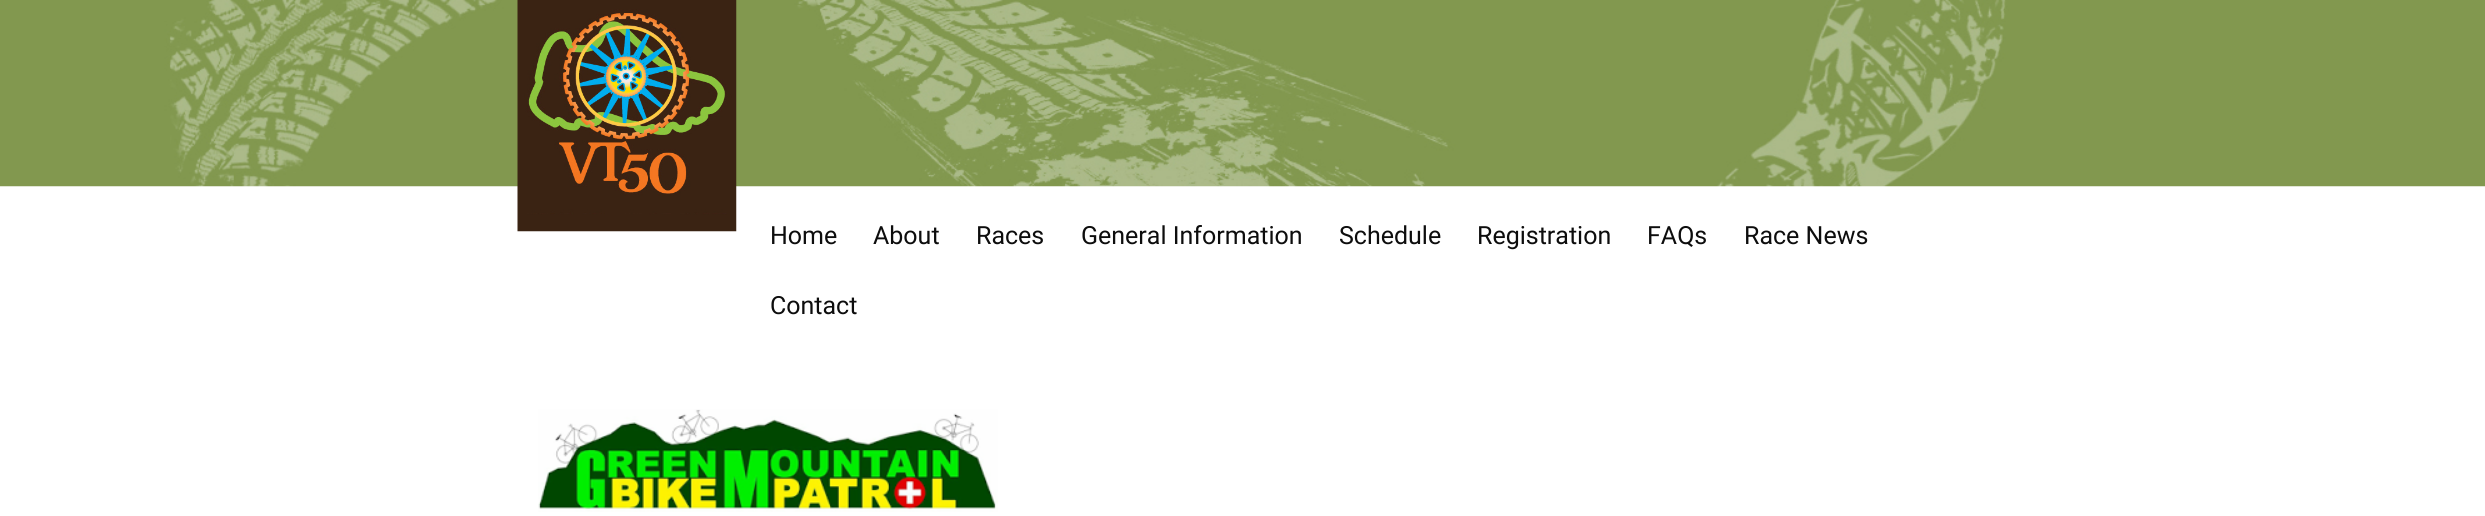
import math
import cairo

surface = cairo.ImageSurface(cairo.FORMAT_RGB24, 2485, 516)
c = cairo.Context(surface)
options = cairo.FontOptions()
options.set_hint_metrics(cairo.HINT_METRICS_OFF)
options.set_hint_style(cairo.HINT_STYLE_NONE)
c.set_font_options(options)
c.set_miter_limit(4)
def C(code):
 c.set_source_rgb(*(v / 255 for v in bytes.fromhex(code[-6:])))
def F(family, size, italic, bold):
 c.select_font_face(family, cairo.FONT_SLANT_ITALIC if italic else cairo.FONT_SLANT_NORMAL, cairo.FONT_WEIGHT_BOLD if bold else cairo.FONT_WEIGHT_NORMAL)
 c.set_font_size(size)
def T(x, y, s):
 c.move_to(x, y)
 c.show_text(s)
def I(path, x, y, w, h):
 c.save()
 c.set_source_surface(cairo.ImageSurface.create_from_png(path), x, y)
 c.rectangle(x, y, w, h)
 c.fill()
 c.restore()
C('ffffff')
c.paint()
I('1.png',0,0,2485,187)
I('2.png',517,0,220,232)
F('Roboto',25,0,0)
C('0d0d0d')
T(770,244,'Home')
T(873,244,'About')
T(976,244,'Races')
T(1081,244,'General Information')
T(1339,244,'Schedule')
T(1477,244,'Registration')
T(1647,244,'FAQs')
T(1744,244,'Race News')
T(770,314,'Contact')
I('3.png',538,409,460,103)
surface.write_to_png('o.png')
